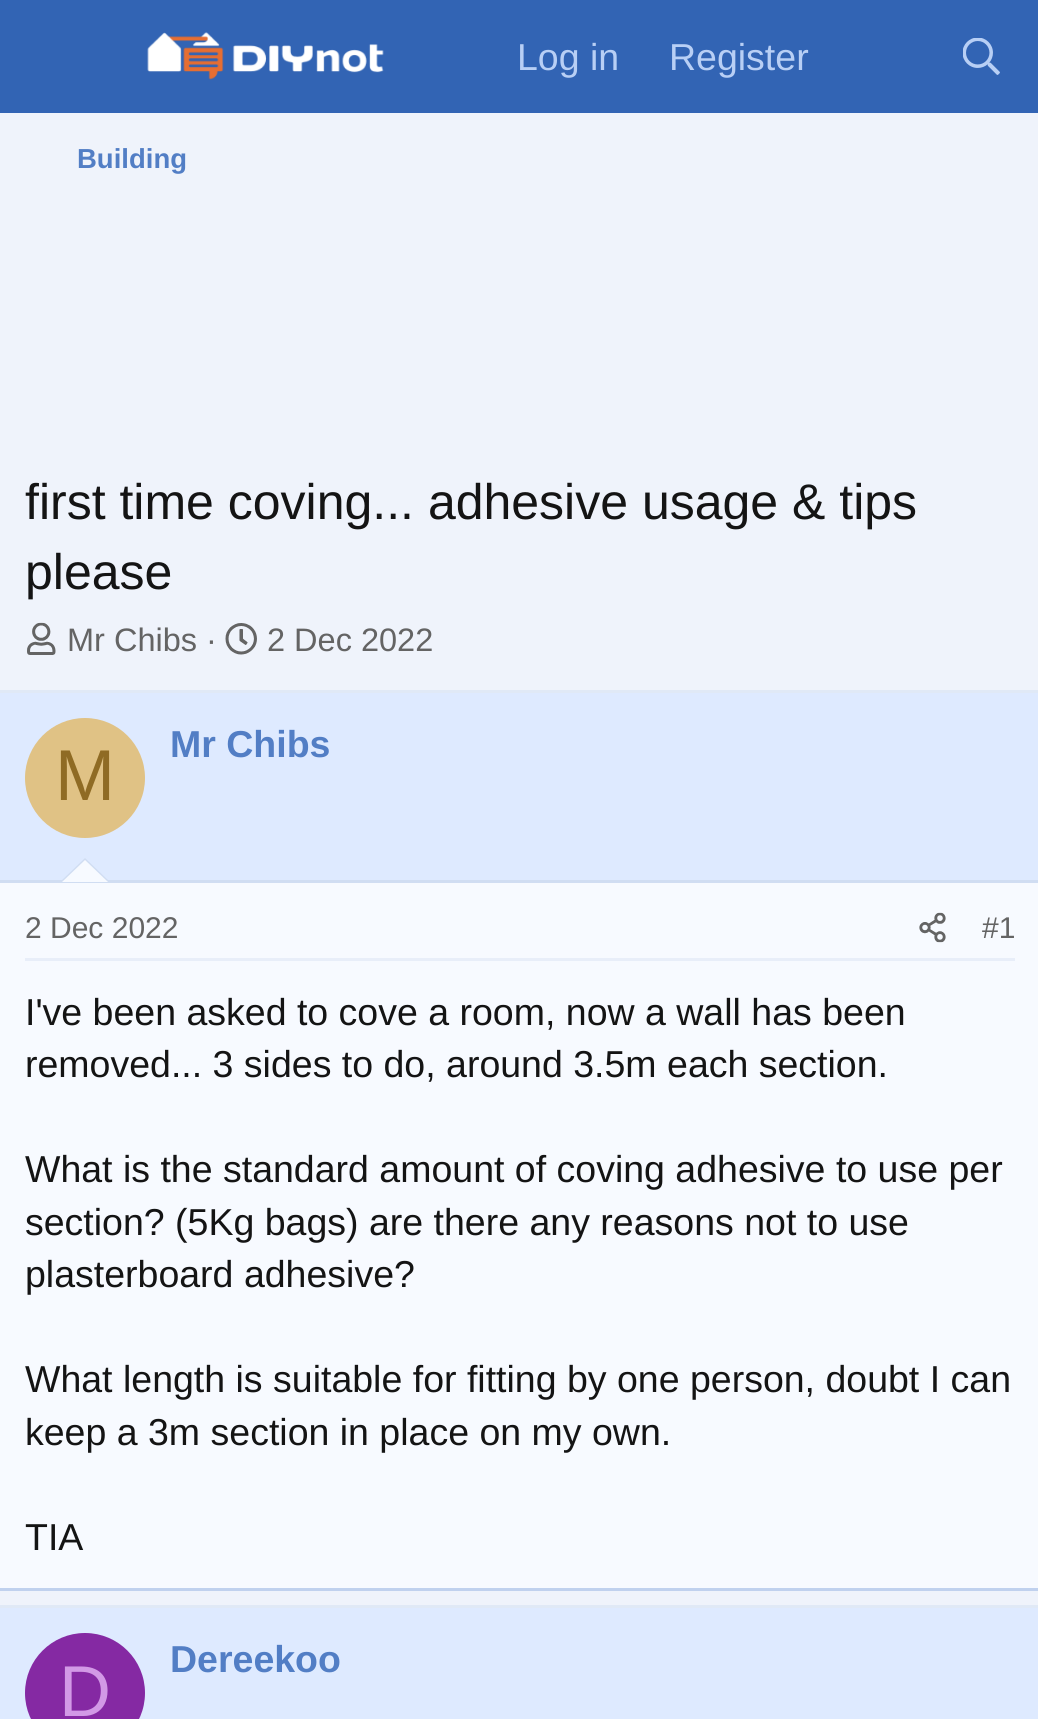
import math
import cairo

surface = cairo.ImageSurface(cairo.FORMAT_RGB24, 1038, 1719)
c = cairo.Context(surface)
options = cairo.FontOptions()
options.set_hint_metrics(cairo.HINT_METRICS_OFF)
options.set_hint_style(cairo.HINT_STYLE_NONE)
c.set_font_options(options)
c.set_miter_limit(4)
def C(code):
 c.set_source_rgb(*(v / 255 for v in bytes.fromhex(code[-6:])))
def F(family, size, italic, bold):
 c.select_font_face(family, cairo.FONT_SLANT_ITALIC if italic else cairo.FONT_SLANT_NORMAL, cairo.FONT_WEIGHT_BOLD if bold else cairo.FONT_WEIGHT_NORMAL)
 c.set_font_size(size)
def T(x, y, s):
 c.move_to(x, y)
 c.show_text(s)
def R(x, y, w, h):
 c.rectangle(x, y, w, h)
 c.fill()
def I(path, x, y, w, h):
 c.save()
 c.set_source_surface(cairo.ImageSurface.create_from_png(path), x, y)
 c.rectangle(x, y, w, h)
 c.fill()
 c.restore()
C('eff3fb')
c.paint()
C('3264b4')
R(0,0,1038,113)
I('1.png',147,32,237,48)
F('Liberation Sans',37.5,0,0)
C('b8cff5')
T(517,70,'Log in')
T(669,70,'Register')
I('2.png',963,38,37,37)
F('Liberation Sans',27.5,0,1)
C('527ec5')
T(77,168,'Building')
F('Liberation Sans',50,0,0)
C('141414')
T(25,519,'first time coving... adhesive usage & tips')
T(25,589,'please')
I('3.png',27,622,29,33)
F('Liberation Sans',32.5,0,0)
C('646464')
T(67,651,'Mr Chibs ·')
I('4.png',225,623,32,32)
T(267,651,'2 Dec 2022')
C('f7faff')
R(0,883,1038,705)
C('e0e9f6')
R(0,690,1038,3)
C('c0d1ee')
R(0,1588,1038,3)
C('deeaff')
R(0,693,1038,187)
C('d0ddf2')
R(0,880,1038,3)
F('Liberation Sans',37.5,0,1)
C('527ec5')
T(170,757,'Mr Chibs')
C('e0c285')
c.new_path()
c.arc(85,778,60,0,2 * math.pi)
c.fill()
F('Liberation Sans',72,0,0)
C('8f6b24')
T(55,800,'M')
C('d0ddf2')
c.new_path()
c.move_to(110,882)
c.line_to(60,882)
c.line_to(85,858)
c.close_path()
c.fill()
C('f7faff')
c.new_path()
c.move_to(108,882)
c.line_to(62,882)
c.line_to(85,860)
c.close_path()
c.fill()
C('e8eef9')
R(25,958,990,3)
F('Liberation Sans',30,0,0)
C('646464')
T(25,938,'2 Dec 2022')
I('5.png',919,912,27,31)
T(982,938,'#1')
F('Liberation Sans',37.5,0,0)
C('141414')
T(25,1025,'I\'ve been asked to cove a room, now a wall has been')
T(25,1077,'removed... 3 sides to do, around 3.5m each section.')
T(25,1182,'What is the standard amount of coving adhesive to use per')
T(25,1235,'section? (5Kg bags) are there any reasons not to use')
T(25,1287,'plasterboard adhesive?')
T(25,1392,'What length is suitable for fitting by one person, doubt I can')
T(25,1445,'keep a 3m section in place on my own.')
T(25,1550,'TIA')
C('e0e9f6')
R(0,1605,1038,3)
C('deeaff')
R(0,1608,1038,111)
F('Liberation Sans',37.5,0,1)
C('527ec5')
T(170,1672,'Dereekoo')
C('8529a3')
c.new_path()
c.arc(85,1693,60,0,2 * math.pi)
c.fill()
F('Liberation Sans',72,0,0)
C('d299e6')
T(59,1716,'D')
surface.write_to_png('o.png')
